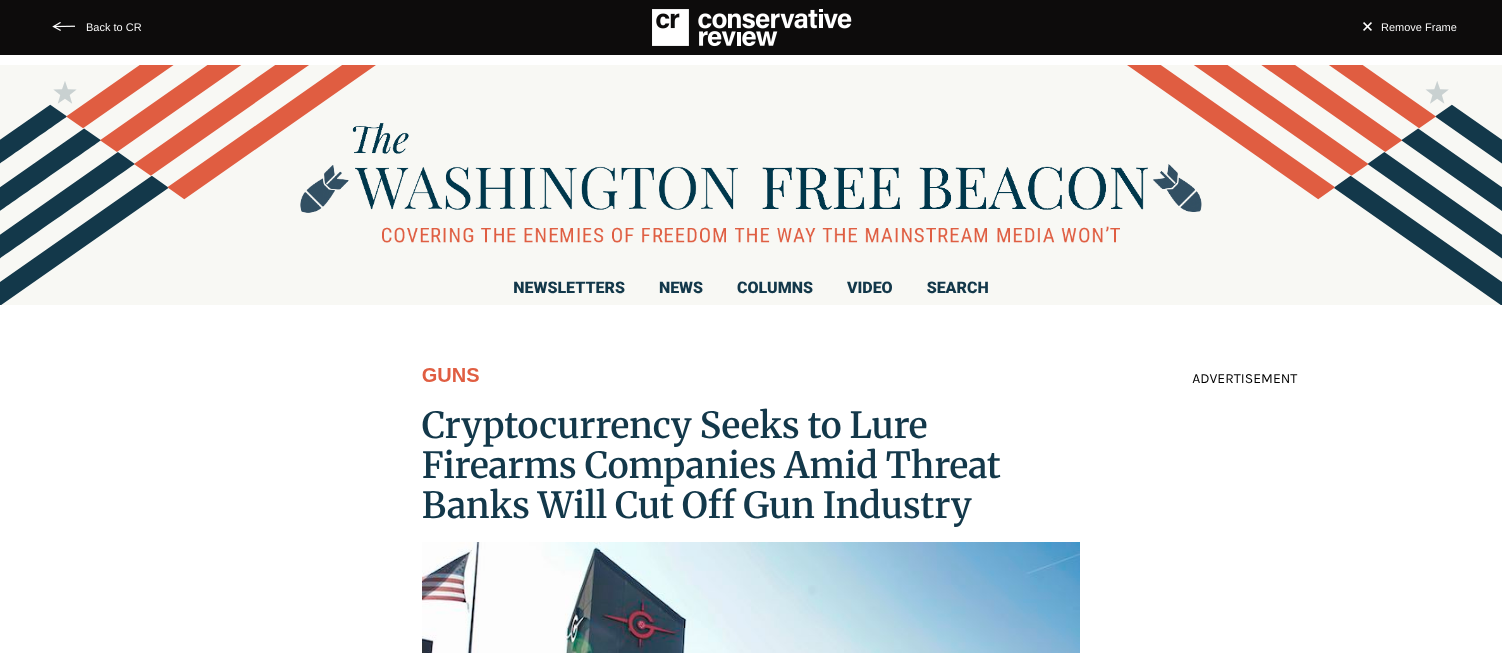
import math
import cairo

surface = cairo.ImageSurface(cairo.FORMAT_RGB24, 1502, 653)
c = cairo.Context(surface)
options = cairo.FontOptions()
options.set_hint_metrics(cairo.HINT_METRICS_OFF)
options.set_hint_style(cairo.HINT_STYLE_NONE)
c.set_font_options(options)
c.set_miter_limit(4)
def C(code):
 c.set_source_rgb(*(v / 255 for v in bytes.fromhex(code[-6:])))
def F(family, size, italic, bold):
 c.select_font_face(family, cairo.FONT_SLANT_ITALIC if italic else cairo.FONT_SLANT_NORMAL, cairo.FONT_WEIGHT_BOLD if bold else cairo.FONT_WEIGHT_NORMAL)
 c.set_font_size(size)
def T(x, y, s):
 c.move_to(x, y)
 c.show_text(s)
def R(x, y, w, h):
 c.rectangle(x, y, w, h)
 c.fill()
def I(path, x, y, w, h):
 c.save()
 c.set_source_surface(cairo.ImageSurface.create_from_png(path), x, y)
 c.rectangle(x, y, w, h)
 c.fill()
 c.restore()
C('0d0c0c')
c.paint()
C('ffffff')
R(0,55,1502,2)
I('1.png',52,22,23,9)
F('Liberation Sans',11,0,0)
T(86,31,'Back to CR')
I('2.png',652,9,200,38)
I('3.png',1363,22,9,9)
T(1381,31,'Remove Frame')
I('4.png',0,57,1502,596)
surface.write_to_png('o.png')
